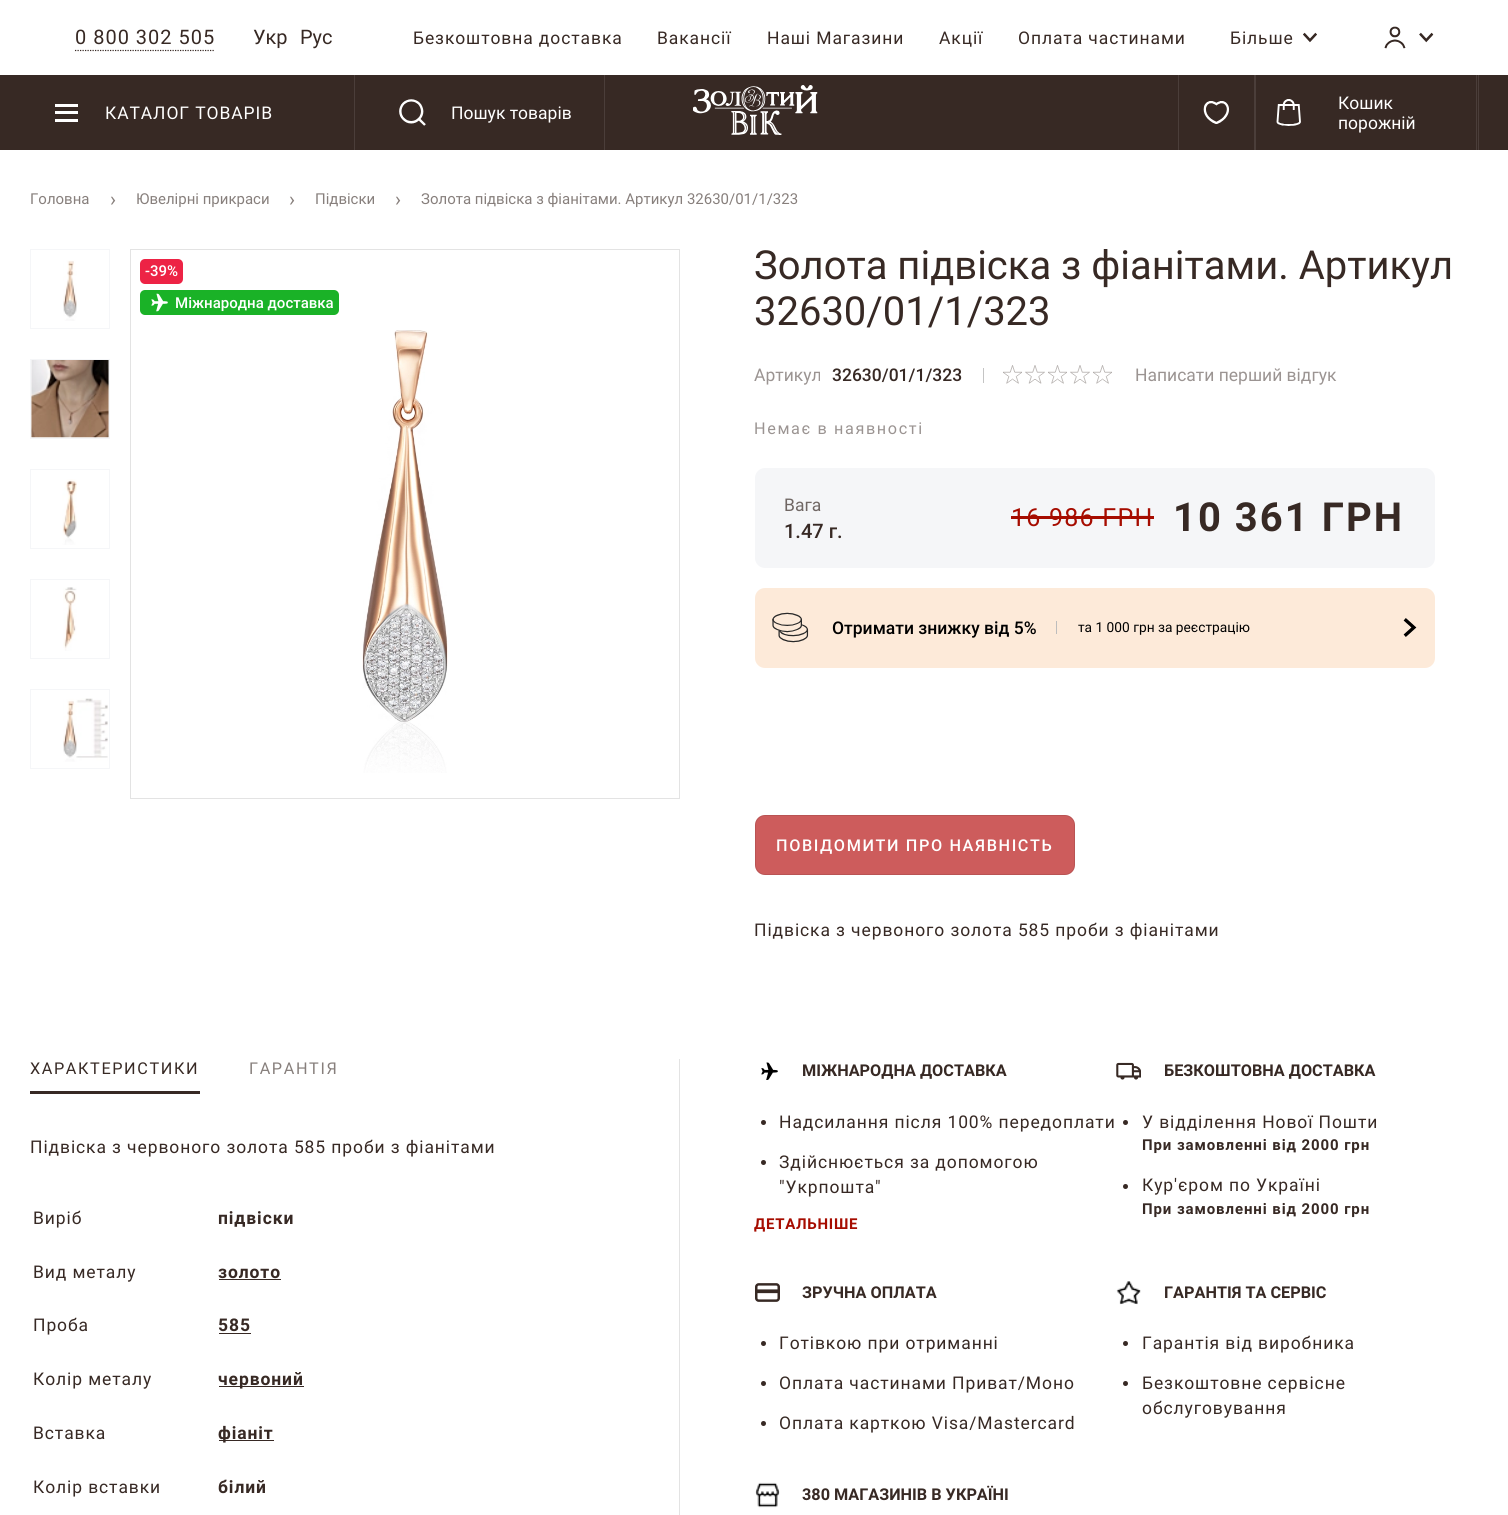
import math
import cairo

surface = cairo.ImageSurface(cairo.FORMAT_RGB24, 1508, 1515)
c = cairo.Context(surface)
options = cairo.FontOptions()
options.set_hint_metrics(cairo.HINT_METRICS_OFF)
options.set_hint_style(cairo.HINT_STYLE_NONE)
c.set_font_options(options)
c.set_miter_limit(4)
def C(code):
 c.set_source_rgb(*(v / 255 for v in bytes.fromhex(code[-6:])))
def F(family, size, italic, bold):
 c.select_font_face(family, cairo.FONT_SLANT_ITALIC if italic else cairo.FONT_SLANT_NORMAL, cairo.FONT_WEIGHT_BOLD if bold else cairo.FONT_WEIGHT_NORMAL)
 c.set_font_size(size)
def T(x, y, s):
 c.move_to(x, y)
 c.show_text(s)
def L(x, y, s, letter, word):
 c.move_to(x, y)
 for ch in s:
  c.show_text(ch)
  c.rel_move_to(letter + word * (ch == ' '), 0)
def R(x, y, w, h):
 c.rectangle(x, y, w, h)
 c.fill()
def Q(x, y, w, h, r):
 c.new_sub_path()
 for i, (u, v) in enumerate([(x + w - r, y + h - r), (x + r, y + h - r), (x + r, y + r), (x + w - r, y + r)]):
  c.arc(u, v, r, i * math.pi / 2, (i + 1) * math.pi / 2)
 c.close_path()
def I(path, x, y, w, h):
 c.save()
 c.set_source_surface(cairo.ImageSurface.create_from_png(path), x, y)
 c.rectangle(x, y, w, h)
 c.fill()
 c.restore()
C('ffffff')
c.paint()
F('Roboto',20,0,0)
C('372924')
L(75,44,'0 800 302 505',1,0)
c.new_path()
c.move_to(75,50.5)
c.line_to(215,50.5)
c.set_line_width(1.2)
c.set_dash([1.25,1.25])
c.stroke()
T(253,44,'Укр')
T(300,44,'Рус')
F('Roboto',17.5,0,0)
L(413,44,'Безкоштовна доставка',.9,0)
L(657,44,'Вакансiї',.9,0)
L(767,44,'Нашi Магазини',.9,0)
L(939,44,'Акції',.9,0)
L(1018,44,'Оплата частинами',.9,0)
L(1230,44,'Більше',.9,0)
I('1.png',1303,32,14,11)
I('2.png',1384,26,22,23)
I('3.png',1419,32,15,11)
R(0,75,1508,75)
C('4b3e3a')
R(354,75,1,75)
gradient = cairo.LinearGradient(66,119,66,106)
gradient.add_color_stop_rgba(0,0.216,0.161,0.141,1)
gradient.add_color_stop_rgba(.4,0.216,0.161,0.141,1)
gradient.add_color_stop_rgba(.4,1,1,1,1)
gradient.add_color_stop_rgba(.6,1,1,1,1)
gradient.add_color_stop_rgba(.6,0.216,0.161,0.141,1)
c.set_source(gradient)
R(55,111,23,3)
C('ffffff')
R(55,104,23,3)
R(55,119,23,3)
L(105,119,'КАТАЛОГ ТОВАРІВ',.9,0)
C('4b3e3a')
R(604,75,1,75)
I('4.png',399,99,27,27)
C('ffffff')
T(451,119,'Пошук товарів')
I('5.png',693,85,125,50)
C('4b3e3a')
R(1178,75,1,75)
I('6.png',1203,101,27,23)
R(1478,75,1,75)
R(1254,75,2,75)
R(1476,75,1,75)
I('7.png',1276,99,25,27)
C('ffffff')
T(1338,109,'Кошик')
T(1338,129,'порожній')
F('Roboto',15,0,0)
C('877f7c')
T(30,204,'Головна')
F('Roboto',20,0,0)
T(110,206,'›')
F('Roboto',15,0,0)
T(136,204,'Ювелiрнi прикраси')
F('Roboto',20,0,0)
T(289,206,'›')
F('Roboto',15,0,0)
T(315,204,'Пiдвiски')
F('Roboto',20,0,0)
T(395,206,'›')
F('Roboto',15,0,0)
T(421,204,'Золота підвіска з фіанітами. Артикул 32630/01/1/323')
c.rectangle(30.5,249.5,79,79)
C('f5f6f8')
c.set_line_width(1)
c.set_dash([])
c.stroke()
I('8.png',63,260,14,61)
c.rectangle(30.5,359.5,79,79)
c.stroke()
I('9.png',31,360,78,78)
c.rectangle(30.5,469.5,79,79)
c.stroke()
I('10.png',62,479,15,66)
c.rectangle(30.5,579.5,79,79)
c.stroke()
I('11.png',63,587,14,64)
c.rectangle(30.5,689.5,79,79)
c.stroke()
I('12.png',63,698,45,64)
c.rectangle(130.5,249.5,549,549)
C('e3e3e3')
c.stroke()
I('13.png',362,330,86,443)
C('ed2345')
Q(140,259,43,25,5)
c.fill()
F('Roboto Medium',15,0,0)
C('ffffff')
T(145,276,'-39%')
C('1ab227')
Q(140,290,199,25,5)
c.fill()
I('14.png',151,293,17,19)
C('ffffff')
T(175,308,'Міжнародна доставка')
F('Roboto',40,0,0)
C('372924')
T(754,279,'Золота підвіска з фіанітами. Артикул')
T(754,325,'32630/01/1/323')
F('Roboto',17.5,0,0)
C('9b9492')
T(754,381,'Артикул')
F('Roboto Medium',17.5,0,0)
C('372924')
T(832,381,'32630/01/1/323')
C('c4c4c4')
R(983,368,1,15)
I('15.png',1003,365,109,19)
F('Roboto',17.5,0,0)
C('9b9492')
T(1135,381,'Написати перший відгук')
F('Roboto',16.25,0,0)
L(754,434,'Немає в наявності',1.6,0)
C('f5f6f8')
Q(755,468,680,100,10)
c.fill()
F('Roboto',17.5,0,0)
C('706764')
T(784,511,'Вага')
F('Roboto Medium',20,0,0)
C('372924')
T(784,538,'1.47 г.')
F('Roboto',25,0,0)
C('a60c00')
L(1011,526,'16 986 ГРН',1.25,0)
R(1011,516,143,3)
F('Roboto',40,0,1)
C('372924')
L(1173,531,'10 361 ГРН',2,0)
C('fdead9')
Q(755,588,680,80,10)
c.fill()
I('16.png',772,612,37,31)
F('Roboto Medium',17.5,0,0)
C('000000')
T(832,634,'Отримати знижку від 5%')
C('bdbdbd')
R(1056,621,1,13)
F('Roboto',13.75,0,0)
C('000000')
T(1078,632,'та 1 000 грн за реєстрацію')
I('17.png',1403,618,14,19)
C('cd5c5c')
Q(755,815,320,60,10)
c.fill()
Q(755.5,815.5,319,59,9.5)
c.set_source_rgba(0,0,0,0.1)
c.stroke()
F('Roboto Medium',16.25,0,0)
C('ffffff')
L(776,851,'ПОВІДОМИТИ ПРО НАЯВНІСТЬ',1.6,0)
F('Roboto',17.5,0,0)
C('372924')
L(754,936,'Підвіска з червоного золота 585 проби з фіанітами',.9,0)
C('e3e3e3')
R(679,1059,1,456)
F('Roboto',16.25,0,0)
C('372924')
L(30,1074,'ХАРАКТЕРИСТИКИ',1.6,0)
R(30,1091,170,3)
C('877f7c')
L(249,1074,'ГАРАНТІЯ',1.6,0)
F('Roboto',17.5,0,0)
C('372924')
L(30,1153,'Підвіска з червоного золота 585 проби з фіанітами',.9,0)
L(33,1224,'Виріб',.9,0)
F('Roboto',17.5,0,1)
L(218,1224,'підвіски',.9,0)
F('Roboto',17.5,0,0)
L(33,1278,'Вид металу',.9,0)
F('Roboto',17.5,0,1)
L(218,1278,'золото',.9,0)
R(219,1279,62,1)
F('Roboto',17.5,0,0)
L(33,1331,'Проба',.9,0)
F('Roboto',17.5,0,1)
L(218,1331,'585',.9,0)
R(219,1333,32,1)
F('Roboto',17.5,0,0)
L(33,1385,'Колір металу',.9,0)
R(219,1386,85,1)
F('Roboto',17.5,0,1)
L(218,1385,'червоний',.9,0)
F('Roboto',17.5,0,0)
L(33,1439,'Вставка',.9,0)
R(219,1440,55,1)
F('Roboto',17.5,0,1)
L(218,1439,'фіаніт',.9,0)
F('Roboto',17.5,0,0)
L(33,1493,'Колір вставки',.9,0)
F('Roboto',17.5,0,1)
L(218,1493,'білий',.9,0)
I('18.png',761,1062,17,18)
F('Roboto',16.25,0,1)
T(802,1076,'МІЖНАРОДНА ДОСТАВКА')
c.new_path()
c.arc(763.5,1122.5,2.5,0,2 * math.pi)
c.fill()
F('Roboto',17.5,0,0)
L(779,1128,'Надсилання після 100% передоплати',.9,0)
c.new_path()
c.arc(763.5,1162.5,2.5,0,2 * math.pi)
c.fill()
L(779,1168,'Здійснюється за допомогою',.9,0)
L(779,1193,'"Укрпошта"',.9,0)
F('Roboto',15,0,1)
C('a60c00')
L(754,1229,'ДЕТАЛЬНІШЕ',.75,0)
I('19.png',1116,1062,25,18)
F('Roboto',16.25,0,1)
C('372924')
T(1164,1076,'БЕЗКОШТОВНА ДОСТАВКА')
c.new_path()
c.arc(1125.5,1122.5,2.5,0,2 * math.pi)
c.fill()
F('Roboto',17.5,0,0)
L(1142,1128,'У відділення Нової Пошти',.9,0)
F('Roboto',15,0,1)
L(1142,1150,'При замовленні від 2000 грн',.9,0)
c.new_path()
c.arc(1125.5,1186.5,2.5,0,2 * math.pi)
c.fill()
F('Roboto',17.5,0,0)
L(1142,1191,'Кур\'єром по Україні',.9,0)
F('Roboto',15,0,1)
L(1142,1214,'При замовленні від 2000 грн',.9,0)
I('20.png',755,1283,25,19)
F('Roboto',16.25,0,1)
T(802,1298,'ЗРУЧНА ОПЛАТА')
c.new_path()
c.arc(763.5,1343.5,2.5,0,2 * math.pi)
c.fill()
F('Roboto',17.5,0,0)
L(779,1349,'Готівкою при отриманні',.9,0)
c.new_path()
c.arc(763.5,1383.5,2.5,0,2 * math.pi)
c.fill()
L(779,1389,'Оплата частинами Приват/Моно',.9,0)
c.new_path()
c.arc(763.5,1423.5,2.5,0,2 * math.pi)
c.fill()
L(779,1429,'Оплата карткою Visa/Mastercard',.9,0)
I('21.png',1116,1281,25,24)
F('Roboto',16.25,0,1)
T(1164,1298,'ГАРАНТІЯ ТА СЕРВІС')
c.new_path()
c.arc(1125.5,1343.5,2.5,0,2 * math.pi)
c.fill()
F('Roboto',17.5,0,0)
L(1142,1349,'Гарантія від виробника',.9,0)
c.new_path()
c.arc(1125.5,1383.5,2.5,0,2 * math.pi)
c.fill()
L(1142,1389,'Безкоштовне сервісне',.9,0)
L(1142,1414,'обслуговування',.9,0)
I('22.png',755,1482,25,26)
F('Roboto',16.25,0,1)
T(802,1500,'380 МАГАЗИНІВ В УКРАЇНІ')
surface.write_to_png('o.png')
